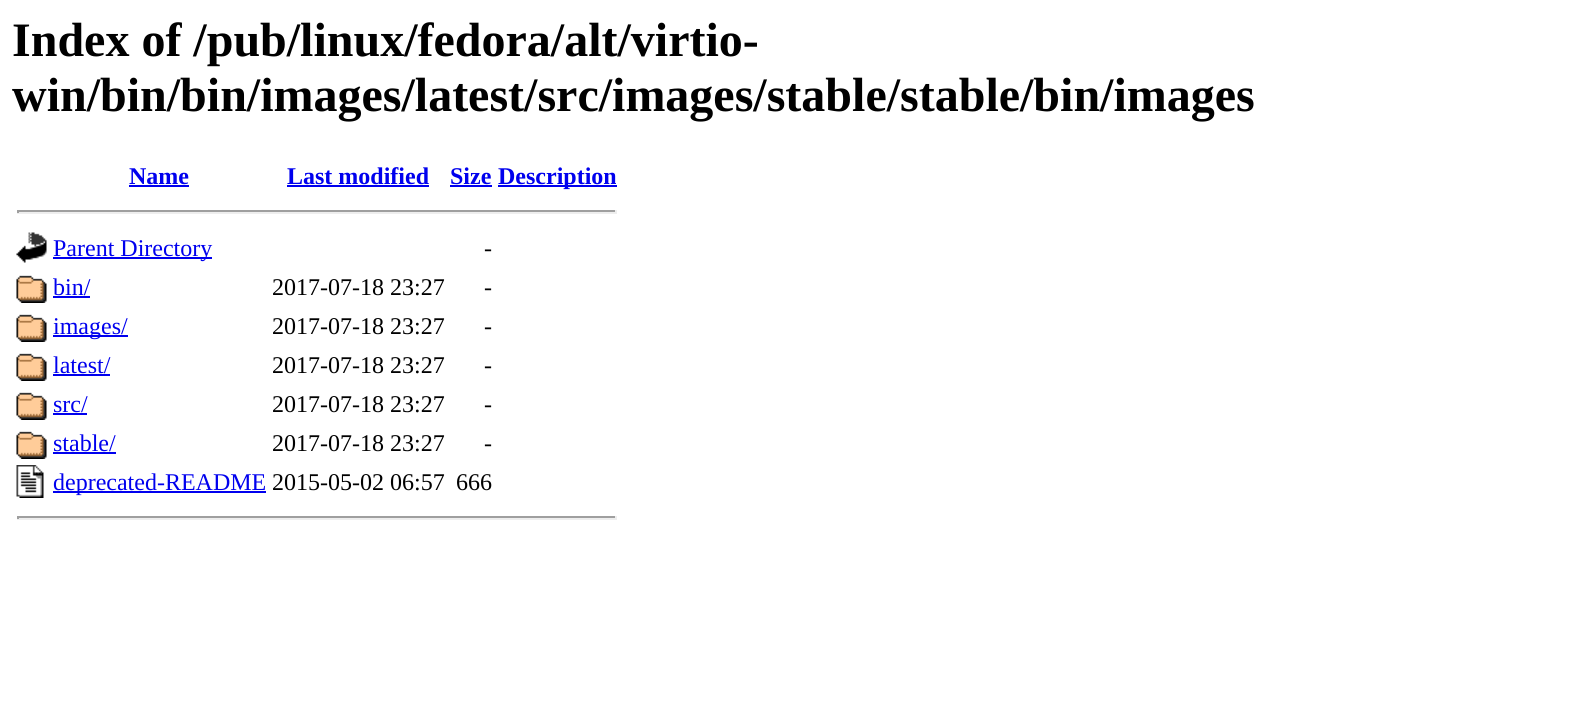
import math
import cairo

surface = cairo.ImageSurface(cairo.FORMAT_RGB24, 1584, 715)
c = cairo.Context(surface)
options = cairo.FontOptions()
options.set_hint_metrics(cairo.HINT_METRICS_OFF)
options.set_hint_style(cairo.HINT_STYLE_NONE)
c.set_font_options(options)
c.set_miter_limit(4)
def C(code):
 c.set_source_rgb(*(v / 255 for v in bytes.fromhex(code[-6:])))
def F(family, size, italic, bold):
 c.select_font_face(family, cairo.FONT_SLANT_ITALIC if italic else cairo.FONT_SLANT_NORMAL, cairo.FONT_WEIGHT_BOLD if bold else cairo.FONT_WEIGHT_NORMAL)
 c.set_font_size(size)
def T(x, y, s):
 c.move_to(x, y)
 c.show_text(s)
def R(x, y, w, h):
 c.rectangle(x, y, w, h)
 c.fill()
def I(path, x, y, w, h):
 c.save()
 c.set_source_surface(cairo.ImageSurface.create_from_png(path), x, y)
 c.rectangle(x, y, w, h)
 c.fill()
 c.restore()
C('ffffff')
c.paint()
F('Liberation Serif',48,0,1)
C('000000')
T(12,56,'Index of /pub/linux/fedora/alt/virtio-')
T(12,111,'win/bin/bin/images/latest/src/images/stable/stable/bin/images')
F('Liberation Serif',24,0,1)
C('0000ee')
T(129,184,'Name')
R(129,185,60,2)
T(287,184,'Last modified')
R(287,185,142,2)
T(450,184,'Size')
R(450,185,42,2)
R(498,185,119,2)
T(498,184,'Description')
C('9f9f9f')
R(17,210,600,2)
C('eeeeee')
R(615,210,2,3)
R(17,212,600,2)
C('9f9f9f')
R(17,210,2,3)
I('1.png',16,232,31,31)
C('0000ee')
R(53,257,159,2)
F('Liberation Serif',24,0,0)
T(53,256,'Parent Directory')
C('000000')
T(484,256,'-')
I('2.png',16,275,31,28)
C('0000ee')
T(53,295,'bin/')
R(53,296,37,2)
C('000000')
T(272,295,'2017-07-18 23:27')
T(484,295,'-')
I('2.png',16,314,31,28)
C('0000ee')
R(53,335,75,2)
T(53,334,'images/')
C('000000')
T(272,334,'2017-07-18 23:27')
T(484,334,'-')
I('2.png',16,353,31,28)
C('0000ee')
T(53,373,'latest/')
R(53,374,57,2)
C('000000')
T(272,373,'2017-07-18 23:27')
T(484,373,'-')
I('2.png',16,392,31,28)
C('0000ee')
T(53,412,'src/')
R(53,413,34,2)
C('000000')
T(272,412,'2017-07-18 23:27')
T(484,412,'-')
I('2.png',16,431,31,28)
C('0000ee')
T(53,451,'stable/')
R(53,452,63,2)
C('000000')
T(272,451,'2017-07-18 23:27')
T(484,451,'-')
I('3.png',16,465,28,33)
C('0000ee')
R(53,491,213,2)
T(53,490,'deprecated-README')
C('000000')
T(272,490,'2015-05-02 06:57')
T(456,490,'666')
C('9f9f9f')
R(17,516,600,2)
C('eeeeee')
R(615,516,2,3)
R(17,518,600,2)
C('9f9f9f')
R(17,516,2,3)
surface.write_to_png('o.png')
